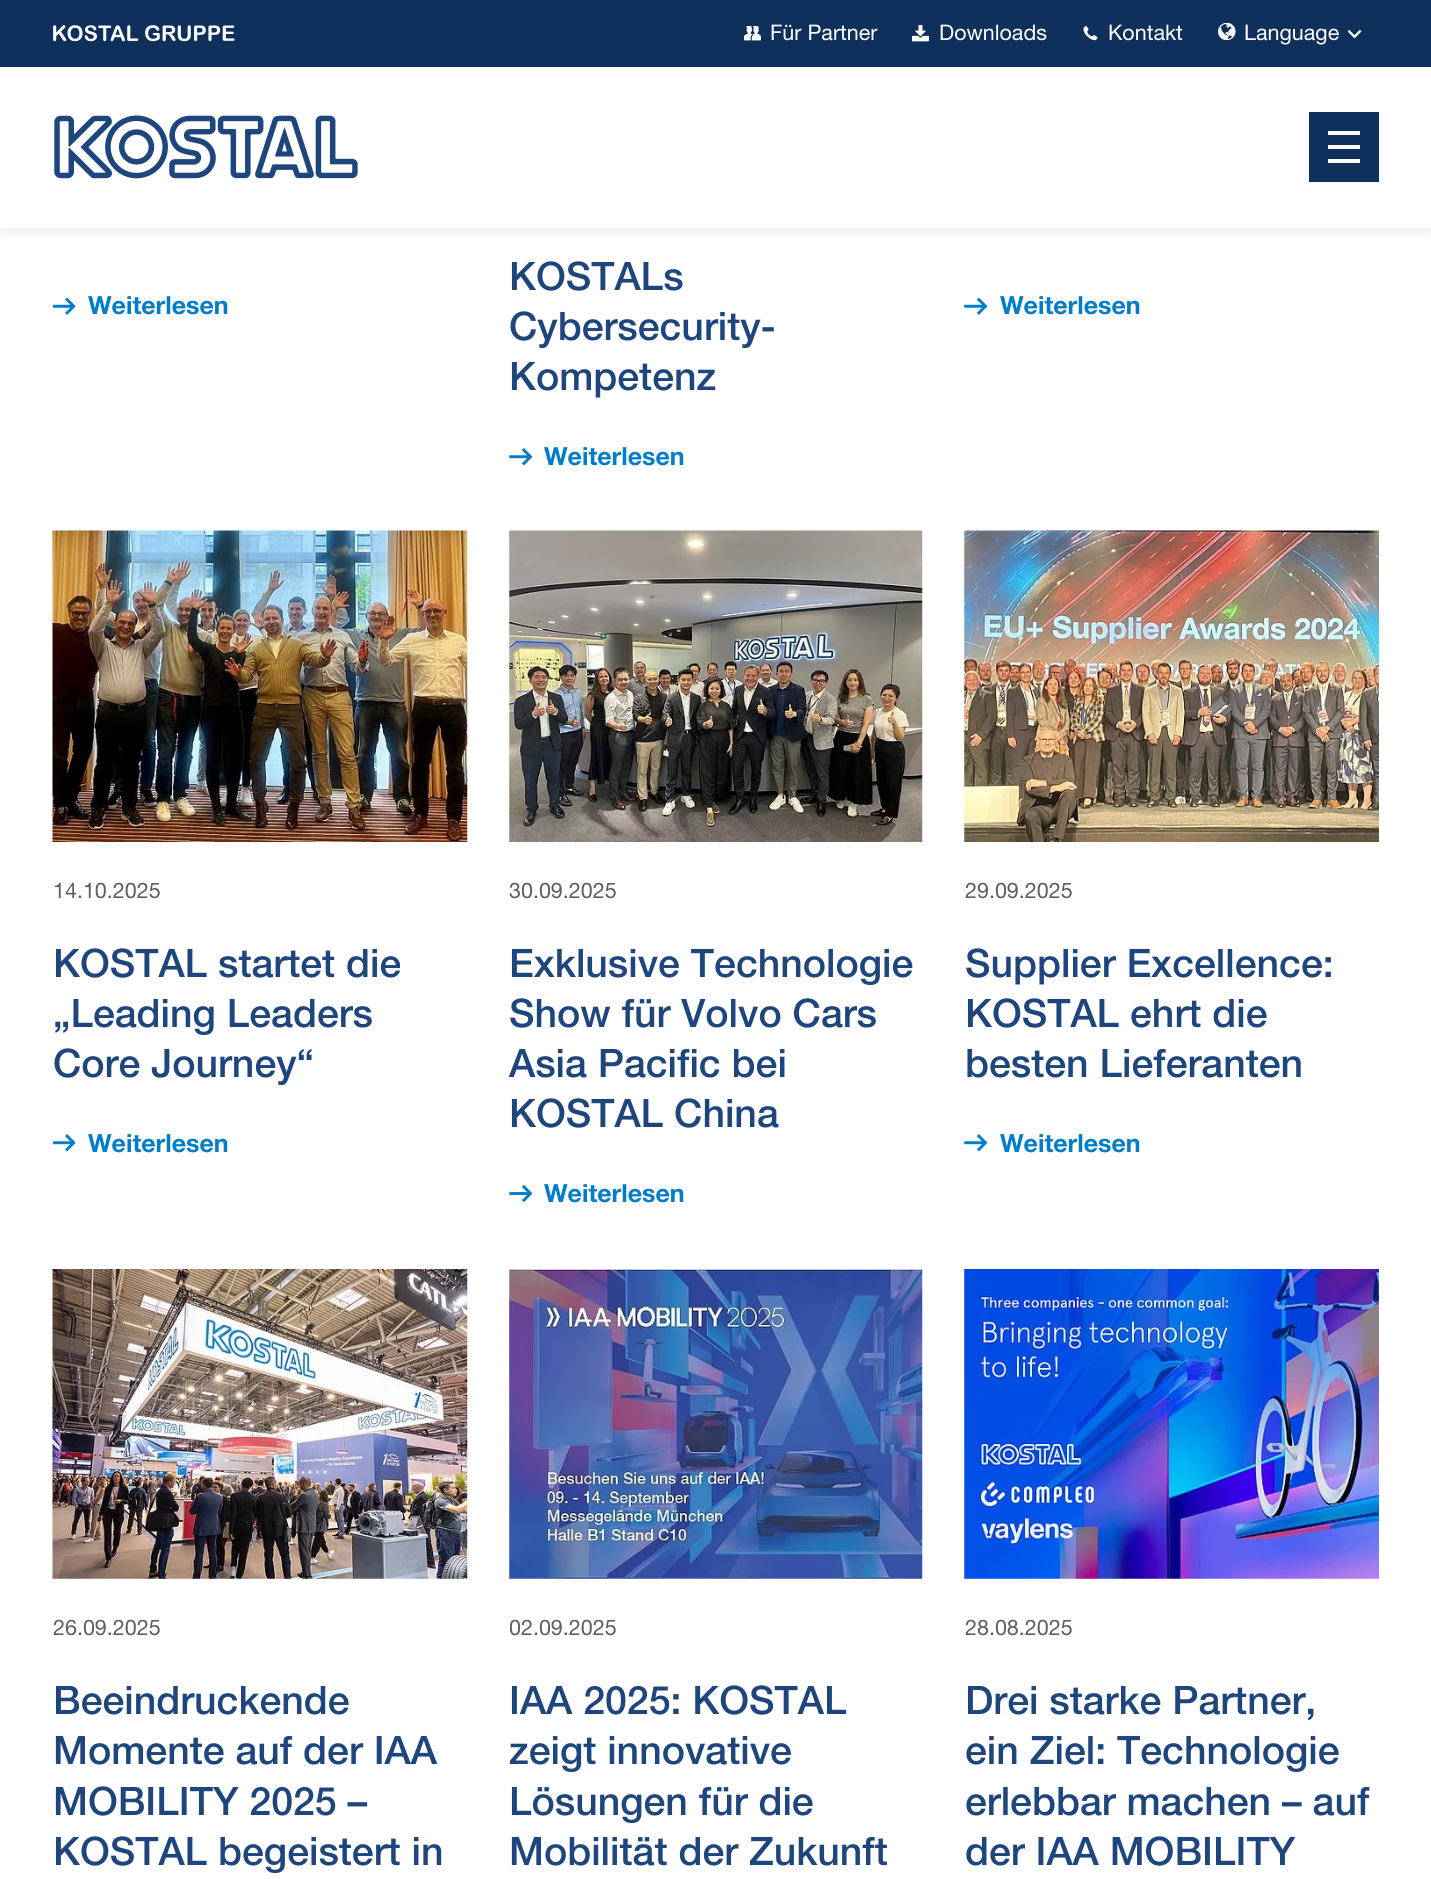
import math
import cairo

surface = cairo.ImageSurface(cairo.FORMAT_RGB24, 1431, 1879)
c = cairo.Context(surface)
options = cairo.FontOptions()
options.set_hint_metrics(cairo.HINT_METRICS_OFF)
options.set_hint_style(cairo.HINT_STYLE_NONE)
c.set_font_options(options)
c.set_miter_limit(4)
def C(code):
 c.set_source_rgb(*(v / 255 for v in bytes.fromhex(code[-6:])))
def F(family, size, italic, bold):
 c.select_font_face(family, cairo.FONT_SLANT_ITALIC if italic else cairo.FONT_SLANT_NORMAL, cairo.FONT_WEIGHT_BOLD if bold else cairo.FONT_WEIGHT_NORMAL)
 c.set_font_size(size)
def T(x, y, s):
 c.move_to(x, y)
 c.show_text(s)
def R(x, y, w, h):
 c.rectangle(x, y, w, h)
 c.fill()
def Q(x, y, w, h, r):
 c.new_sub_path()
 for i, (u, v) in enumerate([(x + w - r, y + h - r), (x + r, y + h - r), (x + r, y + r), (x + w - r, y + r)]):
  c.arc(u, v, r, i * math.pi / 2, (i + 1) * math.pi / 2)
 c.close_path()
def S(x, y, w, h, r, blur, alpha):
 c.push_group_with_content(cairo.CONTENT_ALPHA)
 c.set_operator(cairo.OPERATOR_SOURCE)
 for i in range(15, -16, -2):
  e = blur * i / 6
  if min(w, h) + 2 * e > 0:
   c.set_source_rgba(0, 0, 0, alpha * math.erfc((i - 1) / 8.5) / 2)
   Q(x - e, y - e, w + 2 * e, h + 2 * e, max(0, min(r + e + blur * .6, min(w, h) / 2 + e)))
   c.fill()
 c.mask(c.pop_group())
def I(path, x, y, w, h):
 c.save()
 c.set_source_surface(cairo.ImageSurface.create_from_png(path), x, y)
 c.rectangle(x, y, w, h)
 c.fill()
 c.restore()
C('ffffff')
c.paint()
C('000000')
S(0,5,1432,228,0,5,.06)
C('ffffff')
R(0,67,1431,161)
C('10305c')
R(0,0,1431,67)
I('1.png',53,25,182,17)
I('2.png',744,26,17,15)
F('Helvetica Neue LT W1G',21.5,0,0)
C('ffffff')
T(770,40,'Für Partner')
I('3.png',912,25,17,17)
T(939,40,'Downloads')
I('4.png',1083,26,15,15)
T(1108,40,'Kontakt')
I('5.png',1218,23,18,17)
T(1244,40,'Language')
I('6.png',1348,30,14,9)
I('7.png',54,115,304,64)
C('10305c')
R(1309,112,70,70)
C('ffffff')
R(1328,131,32,4)
R(1328,145,32,4)
R(1328,159,32,4)
I('8.png',53,298,22,17)
F('Helvetica Neue LT W1G',25,0,1)
C('007dc8')
T(88,314,'Weiterlesen')
F('Helvetica Neue LT W1G Medium',39.25,0,0)
C('1e467d')
T(509,290,'KOSTALs')
T(509,340,'Cybersecurity-')
T(509,390,'Kompetenz')
I('9.png',509,448,23,18)
F('Helvetica Neue LT W1G',25,0,1)
C('007dc8')
T(544,465,'Weiterlesen')
I('10.png',964,298,24,17)
T(1000,314,'Weiterlesen')
I('11.png',52,530,416,312)
F('Helvetica Neue LT W1G',21.5,0,0)
C('5e5e5e')
T(53,898,'14.10.2025')
F('Helvetica Neue LT W1G Medium',39.25,0,0)
C('1e467d')
T(53,977,'KOSTAL startet die')
T(53,1027,'„Leading Leaders')
T(53,1077,'Core Journey“')
I('12.png',53,1134,22,18)
F('Helvetica Neue LT W1G',25,0,1)
C('007dc8')
T(88,1152,'Weiterlesen')
I('13.png',509,530,414,312)
F('Helvetica Neue LT W1G',21.5,0,0)
C('5e5e5e')
T(509,898,'30.09.2025')
F('Helvetica Neue LT W1G Medium',39.25,0,0)
C('1e467d')
T(509,977,'Exklusive Technologie')
T(509,1027,'Show für Volvo Cars')
T(509,1077,'Asia Pacific bei')
T(509,1127,'KOSTAL China')
I('14.png',509,1185,23,17)
F('Helvetica Neue LT W1G',25,0,1)
C('007dc8')
T(544,1202,'Weiterlesen')
I('15.png',964,530,415,312)
F('Helvetica Neue LT W1G',21.5,0,0)
C('5e5e5e')
T(965,898,'29.09.2025')
F('Helvetica Neue LT W1G Medium',39.25,0,0)
C('1e467d')
T(965,977,'Supplier Excellence:')
T(965,1027,'KOSTAL ehrt die')
T(965,1077,'besten Lieferanten')
I('16.png',964,1134,24,18)
F('Helvetica Neue LT W1G',25,0,1)
C('007dc8')
T(1000,1152,'Weiterlesen')
I('17.png',52,1269,416,310)
F('Helvetica Neue LT W1G',21.5,0,0)
C('5e5e5e')
T(53,1635,'26.09.2025')
F('Helvetica Neue LT W1G Medium',39.25,0,0)
C('1e467d')
T(53,1714,'Beeindruckende')
T(53,1764,'Momente auf der IAA')
T(53,1815,'MOBILITY 2025 –')
T(53,1865,'KOSTAL begeistert in')
I('18.png',509,1269,414,310)
F('Helvetica Neue LT W1G',21.5,0,0)
C('5e5e5e')
T(509,1635,'02.09.2025')
F('Helvetica Neue LT W1G Medium',39.25,0,0)
C('1e467d')
T(509,1714,'IAA 2025: KOSTAL')
T(509,1764,'zeigt innovative')
T(509,1815,'Lösungen für die')
T(509,1865,'Mobilität der Zukunft')
I('19.png',964,1269,415,310)
F('Helvetica Neue LT W1G',21.5,0,0)
C('5e5e5e')
T(965,1635,'28.08.2025')
F('Helvetica Neue LT W1G Medium',39.25,0,0)
C('1e467d')
T(965,1714,'Drei starke Partner,')
T(965,1764,'ein Ziel: Technologie')
T(965,1815,'erlebbar machen – auf')
T(965,1865,'der IAA MOBILITY')
surface.write_to_png('o.png')
